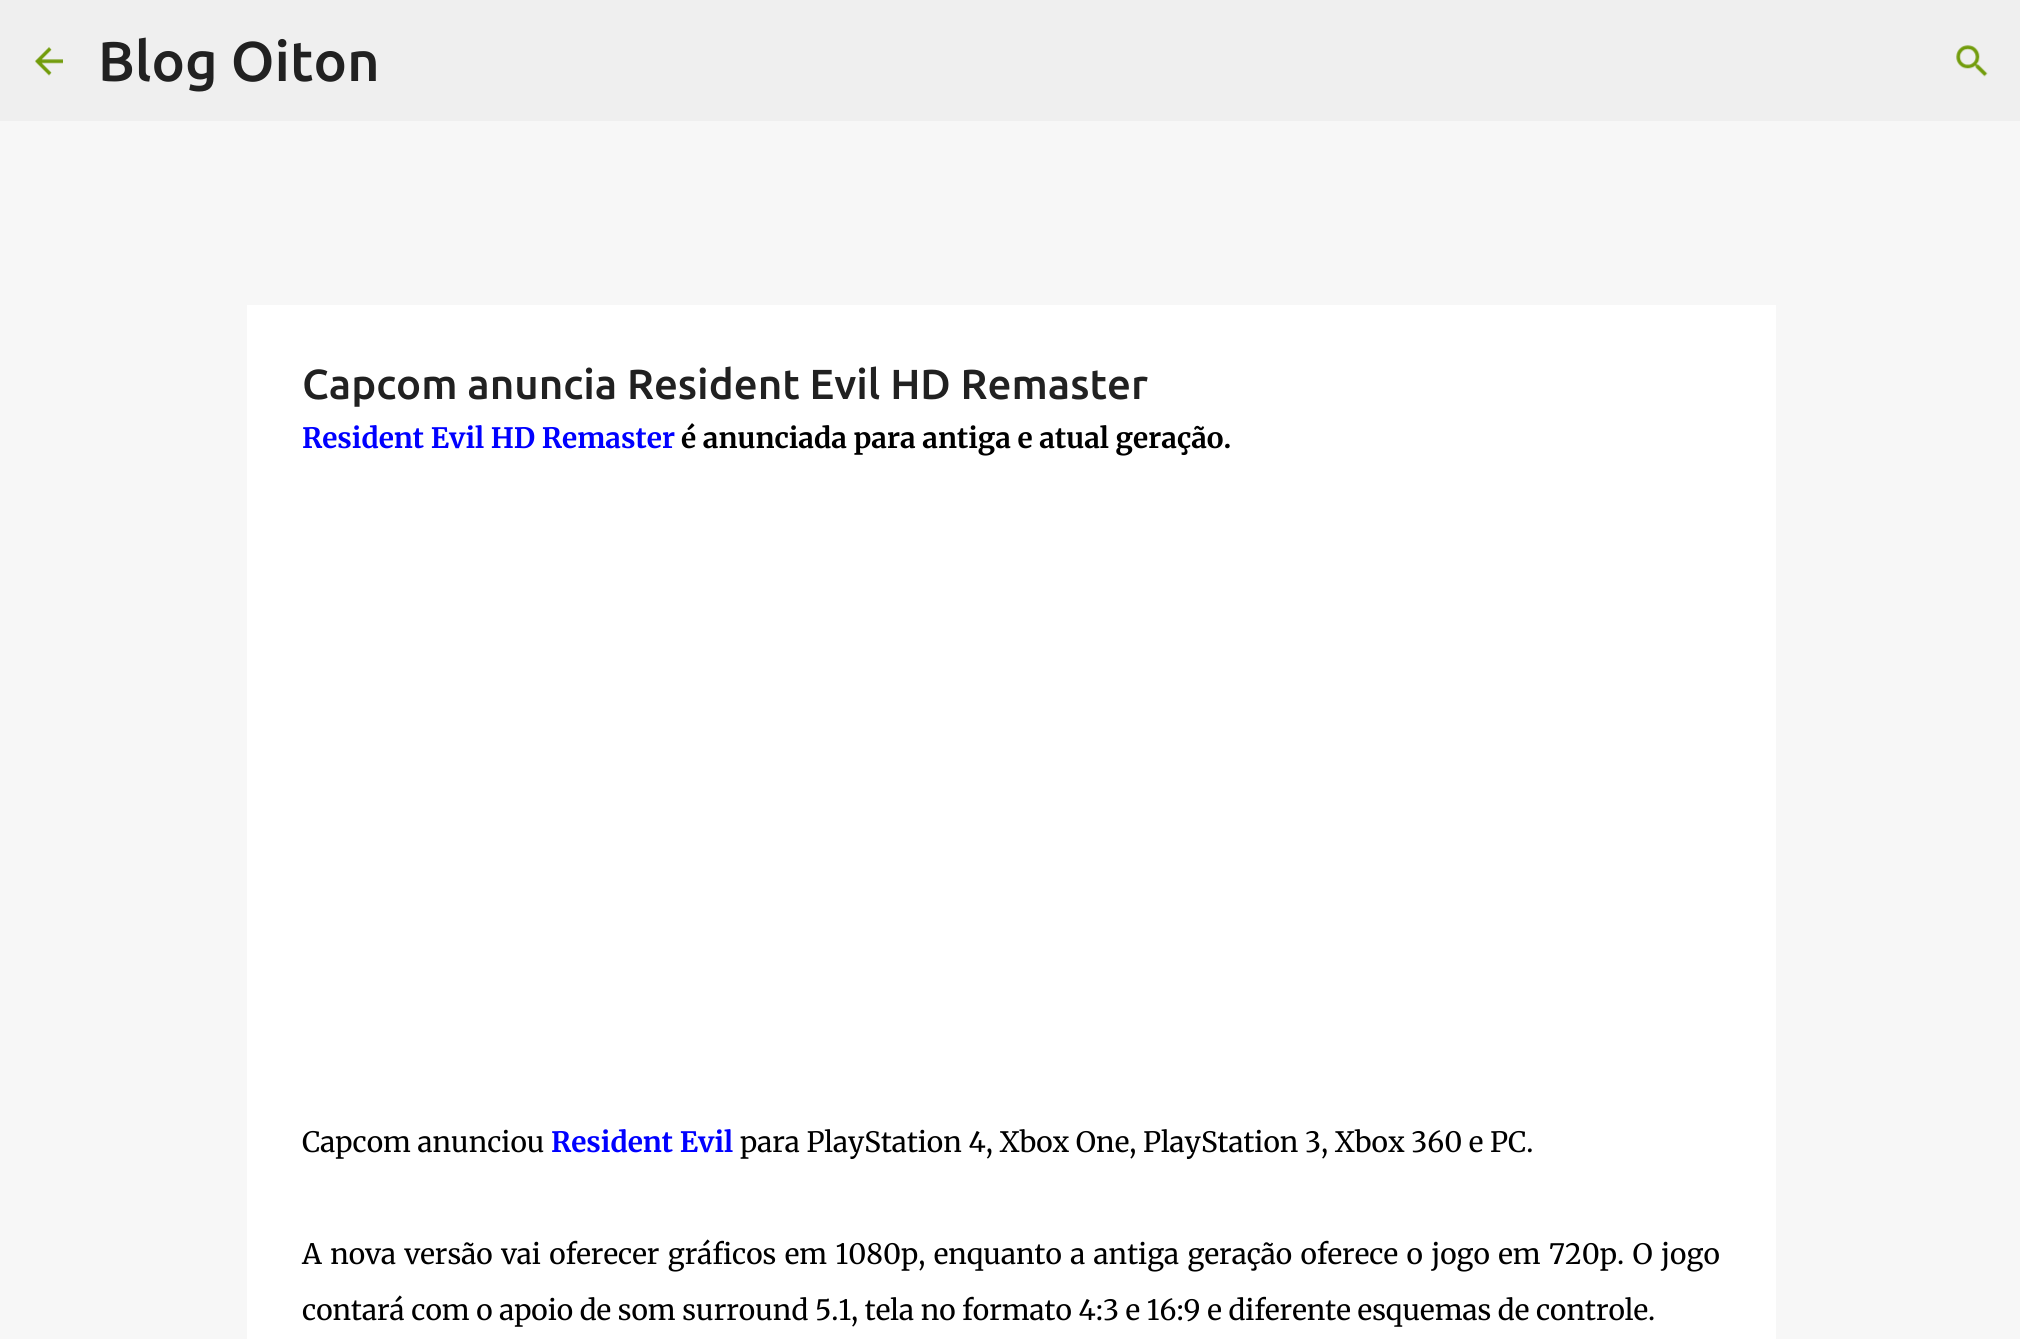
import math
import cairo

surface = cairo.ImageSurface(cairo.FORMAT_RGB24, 2020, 1339)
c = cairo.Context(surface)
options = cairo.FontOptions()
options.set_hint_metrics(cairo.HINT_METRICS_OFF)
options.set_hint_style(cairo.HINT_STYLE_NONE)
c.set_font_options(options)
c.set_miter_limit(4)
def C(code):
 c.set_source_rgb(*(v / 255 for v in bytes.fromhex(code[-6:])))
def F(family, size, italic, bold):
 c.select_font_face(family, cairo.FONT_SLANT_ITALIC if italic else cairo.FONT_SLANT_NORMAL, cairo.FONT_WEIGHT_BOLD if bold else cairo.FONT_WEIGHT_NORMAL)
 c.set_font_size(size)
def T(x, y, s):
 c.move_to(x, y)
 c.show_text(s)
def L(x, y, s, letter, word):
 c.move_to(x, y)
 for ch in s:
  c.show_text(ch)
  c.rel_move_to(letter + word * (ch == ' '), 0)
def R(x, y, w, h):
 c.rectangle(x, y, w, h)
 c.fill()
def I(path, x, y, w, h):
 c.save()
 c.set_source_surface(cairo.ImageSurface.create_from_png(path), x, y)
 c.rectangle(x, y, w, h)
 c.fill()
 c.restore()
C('f7f7f7')
c.paint()
C('efefef')
R(0,0,2020,121)
I('1.png',35,47,28,29)
F('Ubuntu Medium',56,0,0)
C('212121')
T(98,81,'Blog Oiton')
I('2.png',1956,45,32,32)
C('ffffff')
R(247,305,1529,1034)
F('Ubuntu Medium',42,0,0)
C('212121')
T(302,399,'Capcom anuncia Resident Evil HD Remaster')
F('Merriweather',28,0,1)
C('0000ff')
T(302,448,'Resident Evil HD Remaster')
C('000000')
T(681,448,'é anunciada para antiga e atual geração.')
F('Merriweather',28,0,0)
T(302,1152,'Capcom anunciou')
F('Merriweather',28,0,1)
C('0000ff')
T(551,1152,'Resident Evil')
F('Merriweather',28,0,0)
C('000000')
T(740,1152,'para PlayStation 4, Xbox One, PlayStation 3, Xbox 360 e PC.')
L(302,1264,'A nova versão vai oferecer gráficos em 1080p, enquanto a antiga geração oferece o jogo em 720p. O jogo',0,1.75)
T(302,1320,'contará com o apoio de som surround 5.1, tela no formato 4:3 e 16:9 e diferente esquemas de controle.')
surface.write_to_png('o.png')
